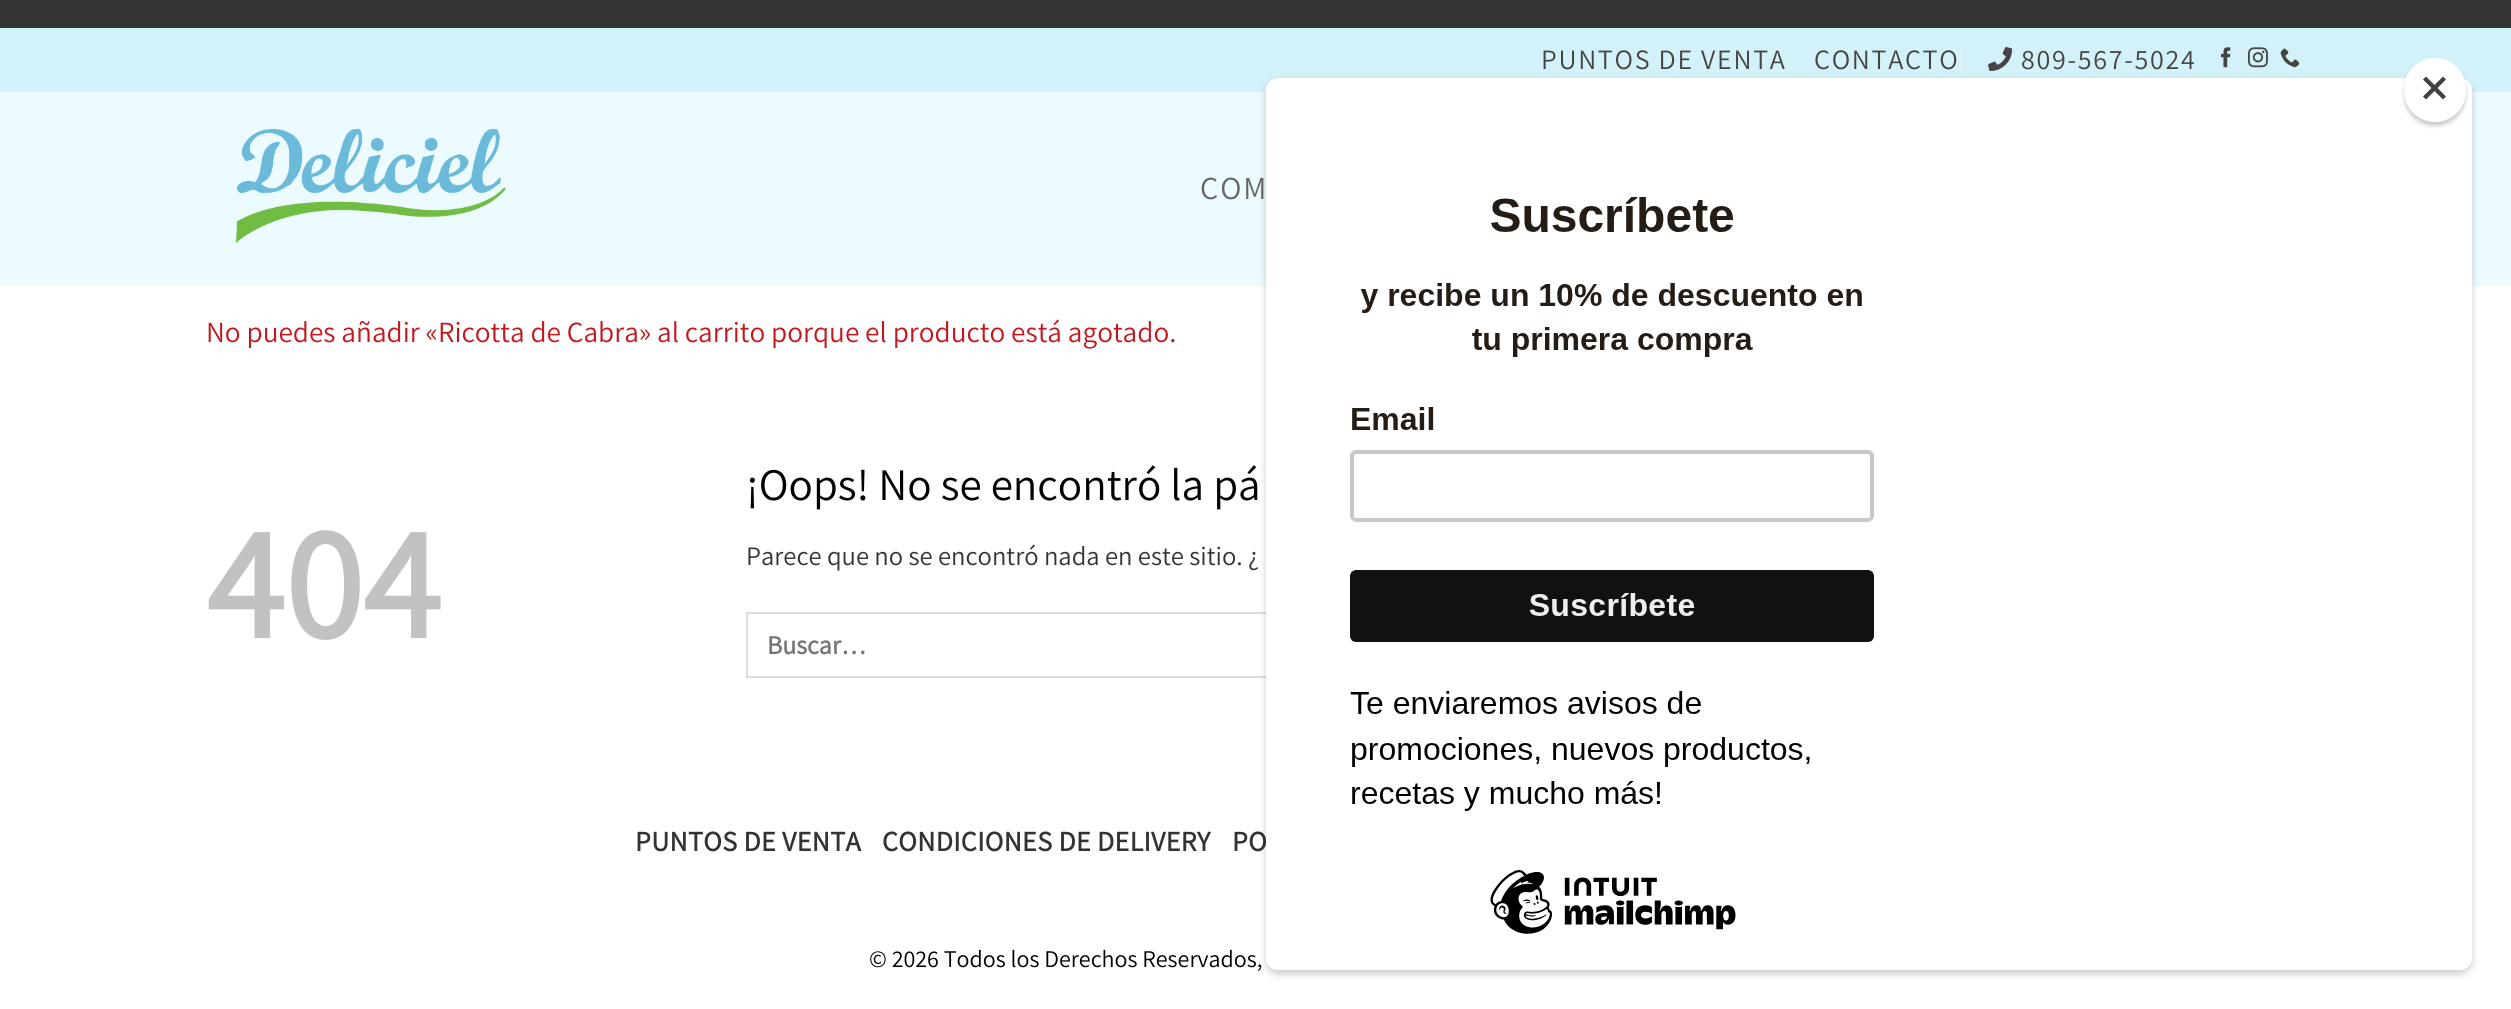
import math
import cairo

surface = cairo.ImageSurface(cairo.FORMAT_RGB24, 2511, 1009)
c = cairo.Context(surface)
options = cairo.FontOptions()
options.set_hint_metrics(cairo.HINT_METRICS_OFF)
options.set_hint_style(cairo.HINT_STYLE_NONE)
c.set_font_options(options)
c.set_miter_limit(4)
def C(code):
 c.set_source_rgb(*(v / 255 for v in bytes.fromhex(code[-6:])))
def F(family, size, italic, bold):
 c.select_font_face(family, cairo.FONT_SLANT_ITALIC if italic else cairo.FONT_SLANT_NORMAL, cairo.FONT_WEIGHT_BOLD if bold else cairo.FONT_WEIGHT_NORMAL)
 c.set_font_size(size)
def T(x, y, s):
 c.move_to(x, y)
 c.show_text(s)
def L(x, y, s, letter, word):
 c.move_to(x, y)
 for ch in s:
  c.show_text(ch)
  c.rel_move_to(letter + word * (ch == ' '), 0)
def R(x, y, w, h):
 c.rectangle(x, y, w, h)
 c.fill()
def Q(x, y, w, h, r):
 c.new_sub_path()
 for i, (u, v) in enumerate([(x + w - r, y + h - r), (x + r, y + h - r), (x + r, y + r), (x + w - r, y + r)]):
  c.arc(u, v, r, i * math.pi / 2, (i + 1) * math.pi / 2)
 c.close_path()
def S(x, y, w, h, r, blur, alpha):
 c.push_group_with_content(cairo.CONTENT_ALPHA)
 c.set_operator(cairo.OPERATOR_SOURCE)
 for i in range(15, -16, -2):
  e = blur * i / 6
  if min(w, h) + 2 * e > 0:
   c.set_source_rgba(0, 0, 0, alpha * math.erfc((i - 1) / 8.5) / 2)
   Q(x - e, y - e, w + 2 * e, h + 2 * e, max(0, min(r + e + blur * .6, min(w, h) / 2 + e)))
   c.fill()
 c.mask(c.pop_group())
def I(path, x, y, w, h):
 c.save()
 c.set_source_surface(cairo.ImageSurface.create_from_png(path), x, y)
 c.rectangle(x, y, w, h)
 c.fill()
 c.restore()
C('ffffff')
c.paint()
C('333333')
R(0,0,2511,28)
C('d3f1f8')
R(0,28,2511,64)
F('Assistant',28,0,0)
C('444444')
L(1541,69,'PUNTOS DE VENTA',1.7,0)
L(1814,69,'CONTACTO',1.7,0)
C('dcf4f9')
R(1960,46,2,30)
I('1.png',1988,47,25,24)
C('444444')
L(2021,69,'809-567-5024',1.7,0)
I('2.png',2221,47,10,21)
I('3.png',2248,47,20,21)
I('4.png',2280,48,20,20)
C('ecfbff')
R(0,92,2511,194)
I('5.png',236,129,270,114)
F('Assistant',32,0,0)
C('666666')
L(1200,199,'COM',2,0)
F('Assistant',29.25,0,0)
C('c4171d')
T(206,342,'No puedes añadir «Ricotta de Cabra» al carrito porque el producto está agotado.')
F('Assistant',159,0,1)
C('c2c2c2')
T(206,638,'404')
F('Assistant',45.1,0,0)
C('000000')
T(746,500,'¡Oops! No se encontró la pá')
F('Assistant',26.6,0,0)
C('333333')
T(746,565,'Parece que no se encontró nada en este sitio. ¿')
c.rectangle(747,613,1492,64)
C('dddddd')
c.stroke()
F('Assistant',26,0,1)
C('757575')
T(767,654,'Buscar…')
F('Assistant',28,0,1)
C('333333')
L(635,851,'PUNTOS DE VENTA',.4,0)
L(882,851,'CONDICIONES DE DELIVERY',.4,0)
L(1232,851,'PO',.4,0)
F('Assistant',24,0,0)
C('000000')
T(869,967,'© 2026 Todos los Derechos Reservados,')
C('000000')
S(1266,82,1206,892,12,4,.2)
I('6.png',1266,78,1206,892)
S(2404,62,62,64,31,2,.2)
C('ffffff')
Q(2404,58,62,64,31)
c.fill()
C('414141')
c.new_path()
c.move_to(2443,76.5)
c.line_to(2446,79.5)
c.line_to(2426,99.5)
c.line_to(2423,96.5)
c.close_path()
c.fill()
c.new_path()
c.move_to(2423,79.5)
c.line_to(2426,76.5)
c.line_to(2446,96.5)
c.line_to(2443,99.5)
c.close_path()
c.fill()
surface.write_to_png('o.png')
